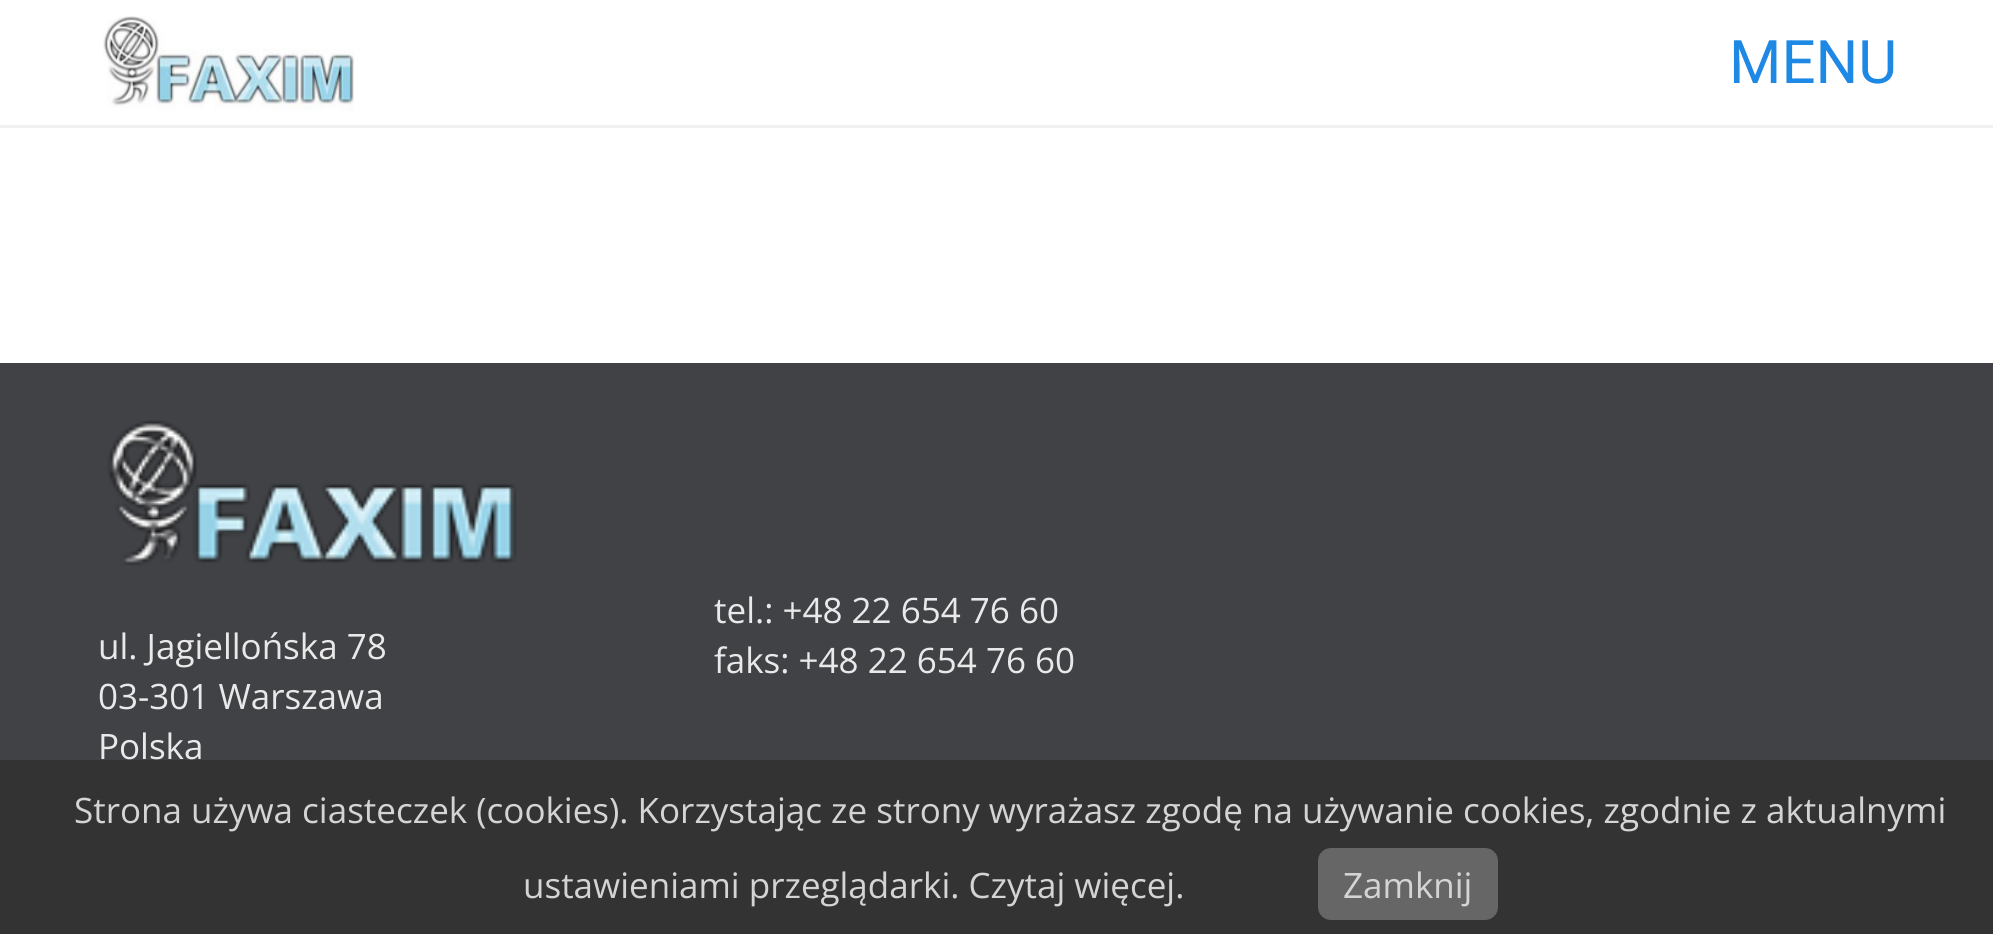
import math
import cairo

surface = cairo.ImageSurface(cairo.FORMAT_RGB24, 1993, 934)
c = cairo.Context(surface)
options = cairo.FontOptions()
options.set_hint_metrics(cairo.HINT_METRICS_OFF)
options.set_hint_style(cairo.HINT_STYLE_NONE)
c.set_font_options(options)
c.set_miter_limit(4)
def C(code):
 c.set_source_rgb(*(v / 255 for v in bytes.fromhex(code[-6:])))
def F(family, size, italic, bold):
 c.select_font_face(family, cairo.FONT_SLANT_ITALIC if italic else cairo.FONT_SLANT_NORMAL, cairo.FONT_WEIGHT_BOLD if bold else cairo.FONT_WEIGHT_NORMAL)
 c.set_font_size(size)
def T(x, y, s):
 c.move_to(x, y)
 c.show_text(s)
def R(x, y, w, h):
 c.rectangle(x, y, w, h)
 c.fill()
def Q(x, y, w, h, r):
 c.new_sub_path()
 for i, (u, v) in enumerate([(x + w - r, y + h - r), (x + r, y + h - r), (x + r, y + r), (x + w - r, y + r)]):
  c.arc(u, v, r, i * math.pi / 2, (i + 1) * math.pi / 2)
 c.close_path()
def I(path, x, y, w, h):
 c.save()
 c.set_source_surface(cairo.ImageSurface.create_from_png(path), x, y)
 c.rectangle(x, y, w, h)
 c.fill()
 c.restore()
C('ffffff')
c.paint()
C('f0f0f0')
R(0,125,1993,3)
I('1.png',103,16,252,95)
F('Roboto',60,0,0)
C('1e88e5')
T(1729,83,'MENU')
C('414246')
R(0,363,1993,397)
I('2.png',107,420,410,146)
F('Open Sans',35,0,0)
C('e9e9e9')
T(98,659,'ul. Jagiellońska 78')
T(98,709,'03-301 Warszawa')
T(98,759,'Polska')
T(714,623,'tel.: +48 22 654 76 60')
T(714,673,'faks: +48 22 654 76 60')
C('333333')
R(0,760,1993,174)
C('d4d4d4')
T(74,823,'Strona używa ciasteczek (cookies). Korzystając ze strony wyrażasz zgodę na używanie cookies, zgodnie z aktualnymi')
T(523,898,'ustawieniami przeglądarki. Czytaj więcej.')
C('666666')
Q(1318,848,180,72,13)
c.fill()
C('d4d4d4')
T(1343,898,'Zamknij')
surface.write_to_png('o.png')
